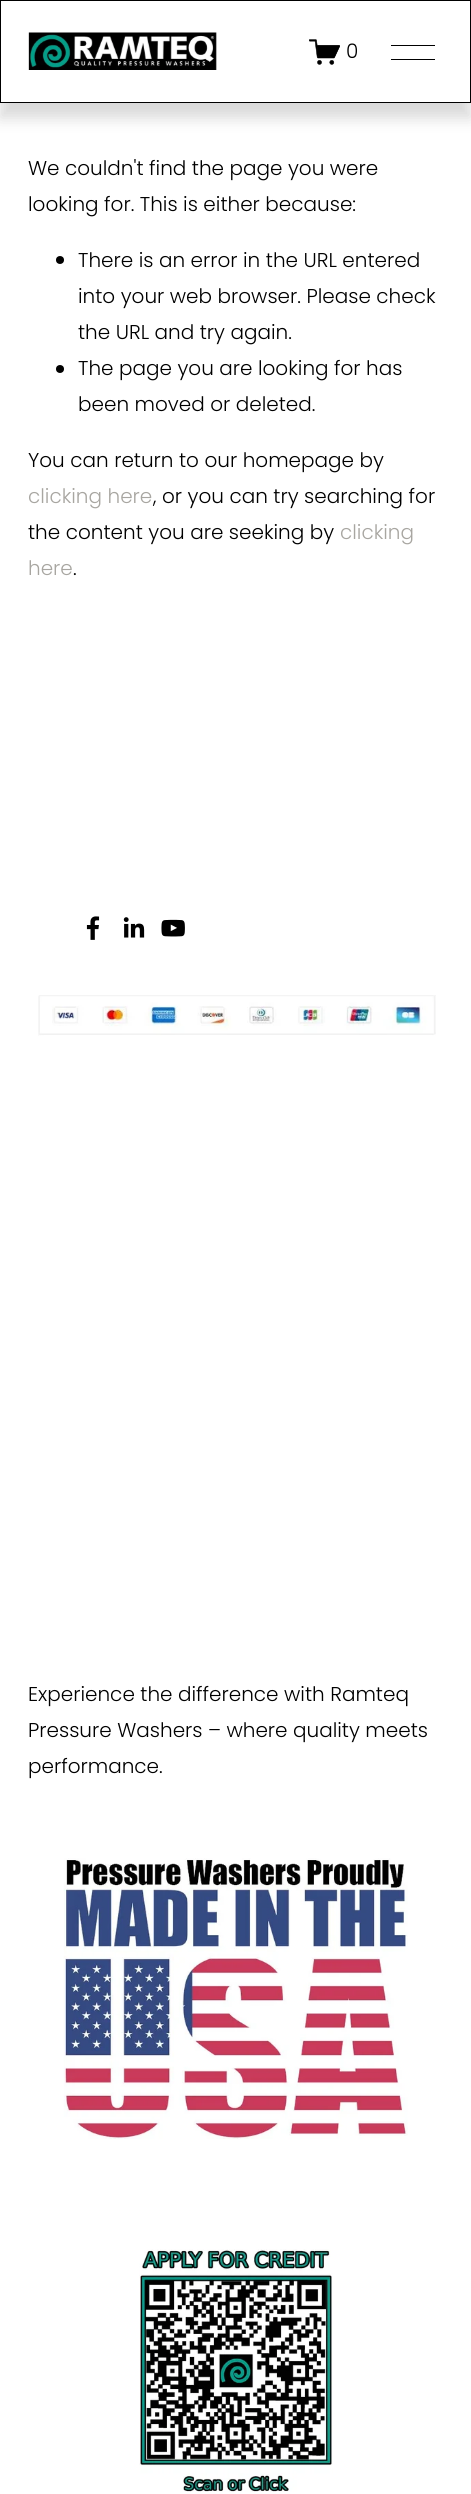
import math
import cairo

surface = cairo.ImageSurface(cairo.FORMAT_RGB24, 471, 2494)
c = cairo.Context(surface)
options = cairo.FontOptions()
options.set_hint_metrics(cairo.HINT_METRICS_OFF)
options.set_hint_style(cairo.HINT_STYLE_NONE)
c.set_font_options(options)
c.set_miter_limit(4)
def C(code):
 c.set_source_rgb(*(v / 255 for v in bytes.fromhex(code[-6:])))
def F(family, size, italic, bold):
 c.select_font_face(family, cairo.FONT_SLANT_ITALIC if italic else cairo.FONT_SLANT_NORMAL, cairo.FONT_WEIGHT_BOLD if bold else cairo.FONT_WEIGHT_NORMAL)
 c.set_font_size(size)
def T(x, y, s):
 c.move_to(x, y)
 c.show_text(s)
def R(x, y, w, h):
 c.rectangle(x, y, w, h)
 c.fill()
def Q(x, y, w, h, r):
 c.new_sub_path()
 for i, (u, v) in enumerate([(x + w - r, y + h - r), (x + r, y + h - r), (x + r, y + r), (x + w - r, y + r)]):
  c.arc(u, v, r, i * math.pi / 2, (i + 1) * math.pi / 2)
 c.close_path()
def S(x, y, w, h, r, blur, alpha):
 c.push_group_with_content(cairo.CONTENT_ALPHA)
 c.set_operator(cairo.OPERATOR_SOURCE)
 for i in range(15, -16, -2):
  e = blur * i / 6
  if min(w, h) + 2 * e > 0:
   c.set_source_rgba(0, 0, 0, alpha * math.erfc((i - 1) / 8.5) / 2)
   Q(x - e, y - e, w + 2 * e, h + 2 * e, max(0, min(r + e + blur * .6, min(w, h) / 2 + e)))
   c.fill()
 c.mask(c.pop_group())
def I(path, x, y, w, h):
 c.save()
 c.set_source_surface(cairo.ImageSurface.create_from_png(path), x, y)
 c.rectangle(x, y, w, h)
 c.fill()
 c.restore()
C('ffffff')
c.paint()
c.save()
c.rectangle(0,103,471,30)
c.clip()
C('d9d9d9')
S(0,15,471,103,0,7.5,1)
c.restore()
c.rectangle(.5,.5,470,102)
C('000000')
c.set_line_width(1)
c.stroke()
I('1.png',28,32,189,38)
I('2.png',309,39,31,26)
F('Poppins Light',20,0,0)
T(346,58,'0')
R(391,45,44,1)
R(391,59,44,1)
T(28,175,'We couldn\'t find the page you were')
T(28,211,'looking for. This is either because:')
c.new_path()
c.arc(60,260,4,0,2 * math.pi)
c.fill()
T(78,267,'There is an error in the URL entered')
T(78,303,'into your web browser. Please check')
T(78,339,'the URL and try again.')
c.new_path()
c.arc(60,369,4,0,2 * math.pi)
c.fill()
T(78,375,'The page you are looking for has')
T(78,411,'been moved or deleted.')
T(28,467,'You can return to our homepage by')
C('a8a6a1')
T(28,503,'clicking here')
C('000000')
T(153,503,', or you can try searching for')
T(28,539,'the content you are seeking by')
C('a8a6a1')
T(340,539,'clicking')
T(28,575,'here')
C('000000')
T(73,575,'.')
I('3.png',86,916,14,24)
I('4.png',123,917,22,21)
I('5.png',161,919,24,18)
I('6.png',38,995,398,41)
T(28,1701,'Experience the difference with Ramteq')
T(28,1737,'Pressure Washers – where quality meets')
T(28,1773,'performance.')
I('7.png',63,1858,345,281)
I('8.png',139,2249,194,243)
surface.write_to_png('o.png')
